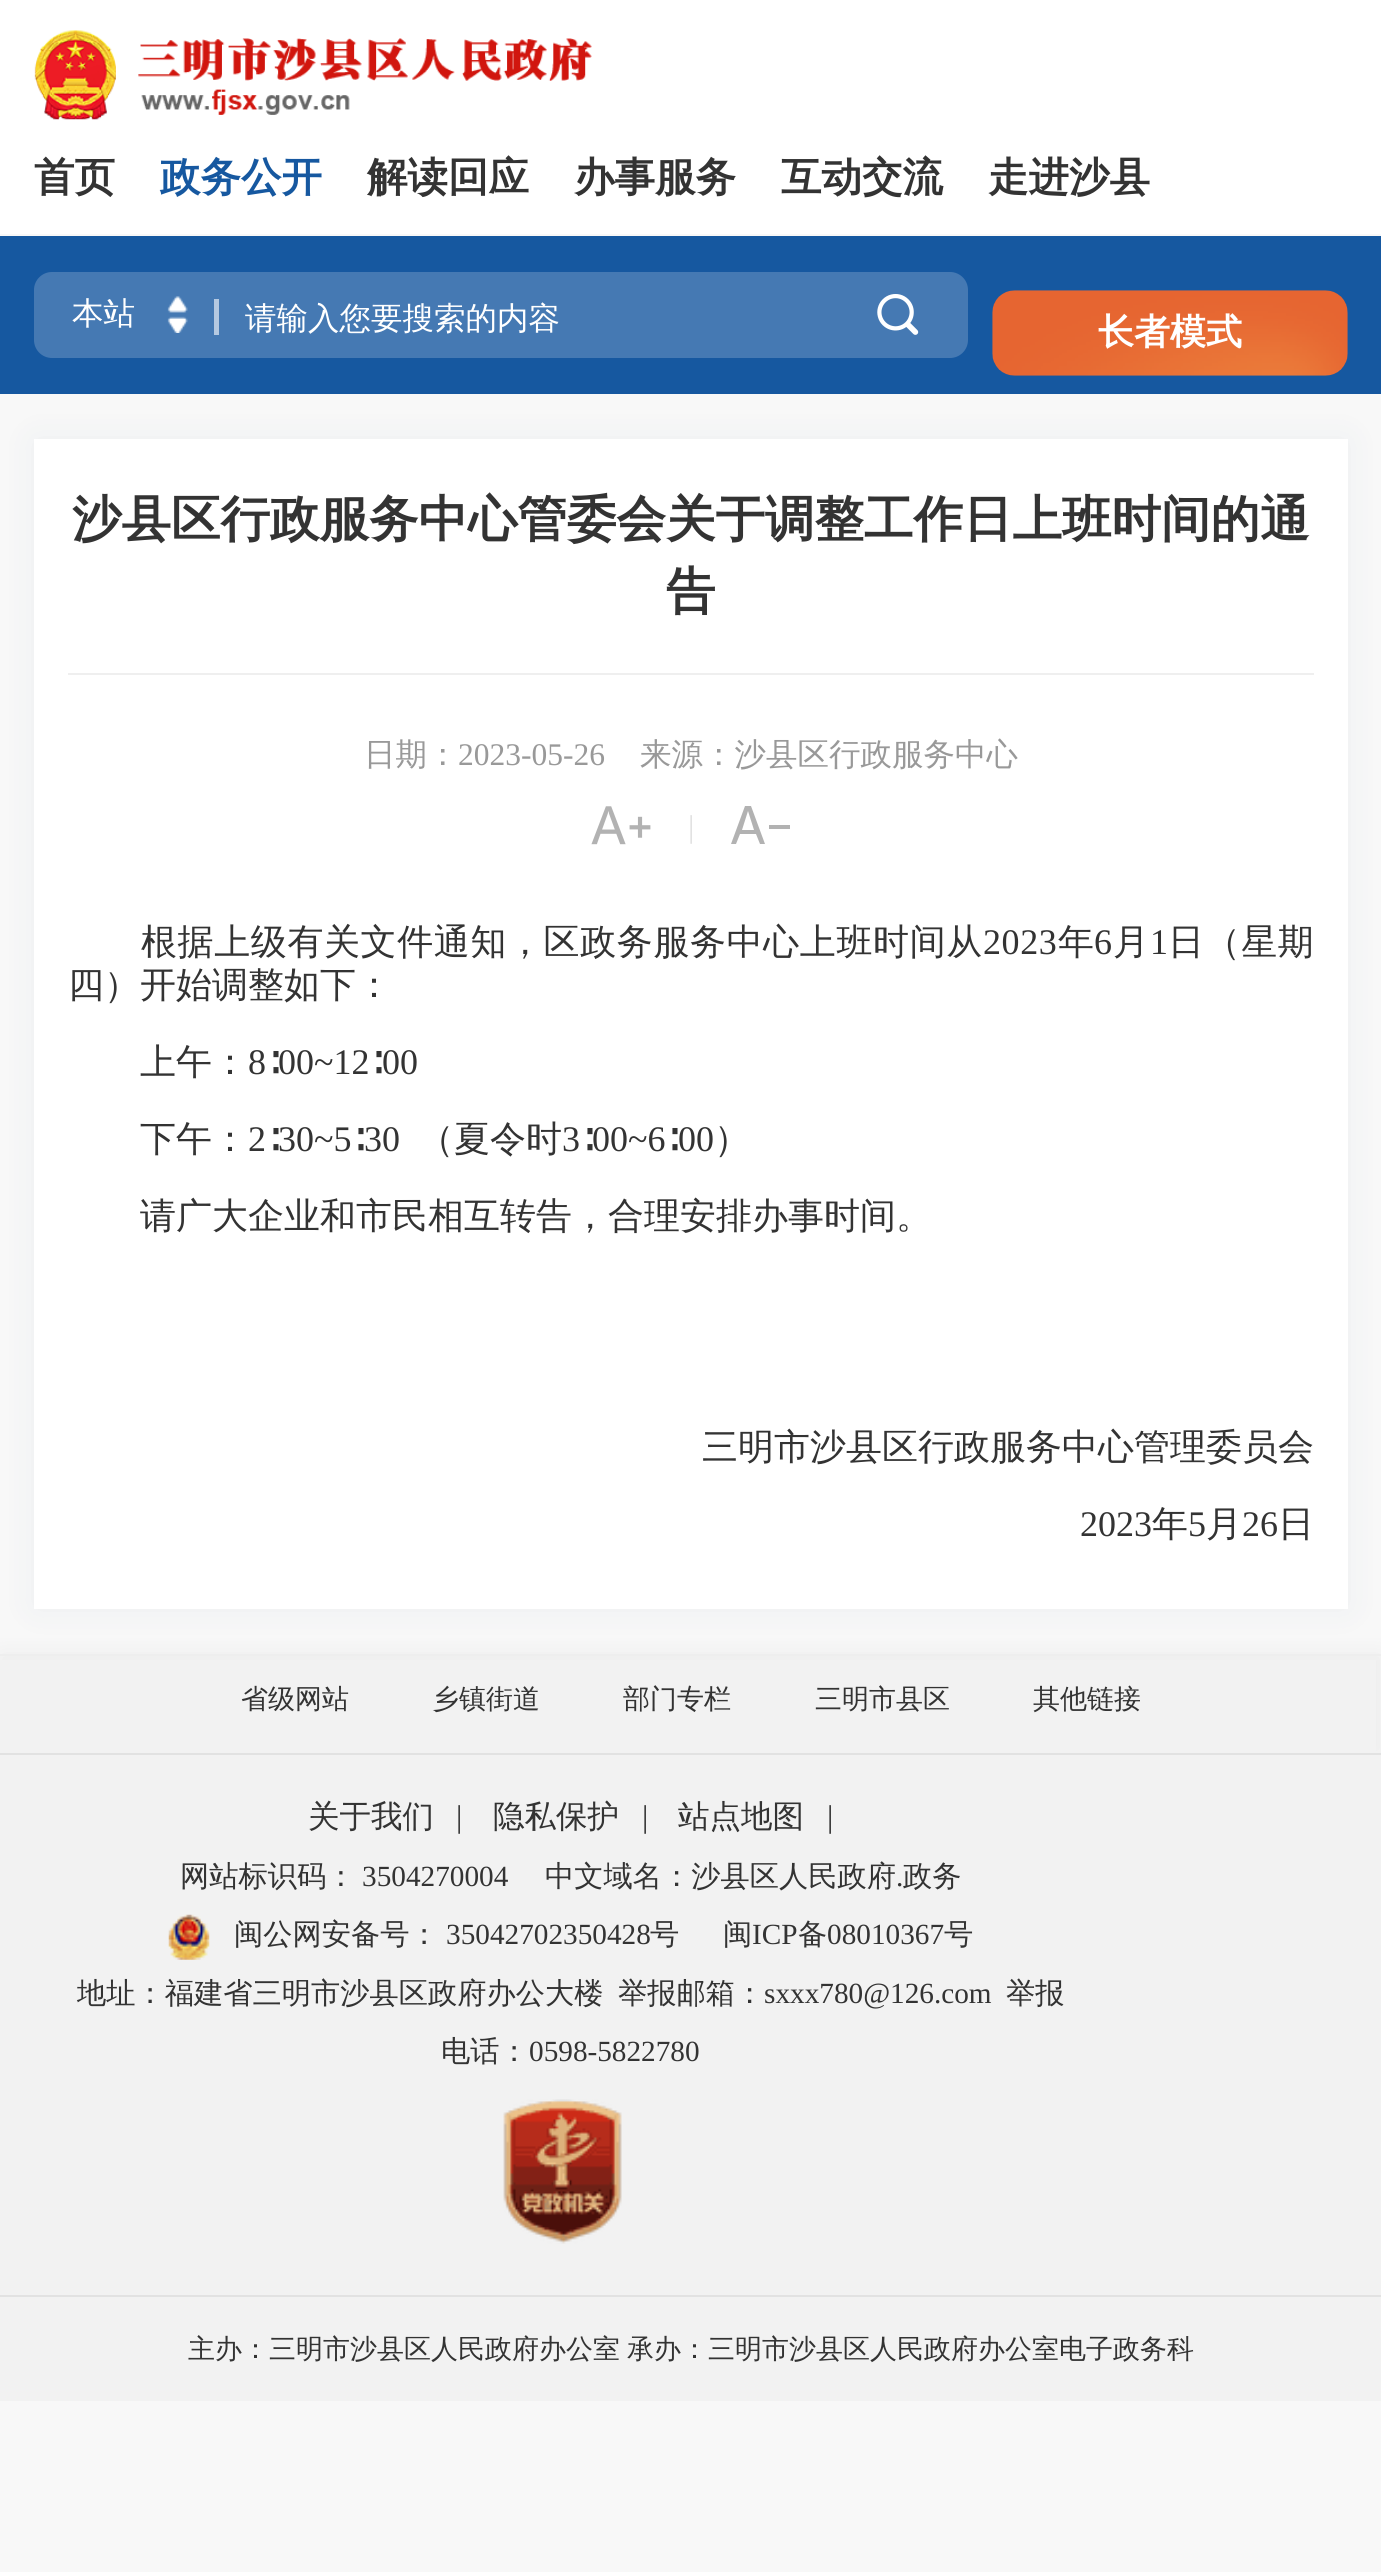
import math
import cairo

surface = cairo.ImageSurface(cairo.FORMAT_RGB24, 1381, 2572)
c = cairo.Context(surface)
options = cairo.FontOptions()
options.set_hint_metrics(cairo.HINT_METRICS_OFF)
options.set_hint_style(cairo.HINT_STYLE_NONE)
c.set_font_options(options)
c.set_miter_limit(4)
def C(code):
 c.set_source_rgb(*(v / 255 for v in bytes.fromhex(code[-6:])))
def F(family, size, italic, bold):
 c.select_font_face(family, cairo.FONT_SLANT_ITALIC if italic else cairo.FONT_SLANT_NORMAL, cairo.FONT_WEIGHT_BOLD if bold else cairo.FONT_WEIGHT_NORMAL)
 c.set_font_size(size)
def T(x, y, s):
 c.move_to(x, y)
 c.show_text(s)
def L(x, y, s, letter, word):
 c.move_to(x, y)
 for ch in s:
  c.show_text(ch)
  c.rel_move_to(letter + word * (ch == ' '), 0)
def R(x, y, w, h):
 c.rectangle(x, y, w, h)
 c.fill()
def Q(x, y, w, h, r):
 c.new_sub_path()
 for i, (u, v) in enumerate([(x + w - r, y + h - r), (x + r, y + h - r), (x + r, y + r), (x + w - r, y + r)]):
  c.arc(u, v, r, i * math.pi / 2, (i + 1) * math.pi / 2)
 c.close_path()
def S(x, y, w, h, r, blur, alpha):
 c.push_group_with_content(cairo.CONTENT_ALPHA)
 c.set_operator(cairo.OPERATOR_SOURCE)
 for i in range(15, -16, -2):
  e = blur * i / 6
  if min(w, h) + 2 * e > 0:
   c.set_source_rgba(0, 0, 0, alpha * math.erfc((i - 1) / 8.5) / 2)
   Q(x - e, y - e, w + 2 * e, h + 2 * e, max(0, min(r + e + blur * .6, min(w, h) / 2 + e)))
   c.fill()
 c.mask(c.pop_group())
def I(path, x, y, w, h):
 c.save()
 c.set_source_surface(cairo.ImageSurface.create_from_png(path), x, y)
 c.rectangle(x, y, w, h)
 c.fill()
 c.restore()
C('f8f8f8')
c.paint()
C('ffffff')
R(0,0,1381,234)
I('1.png',34,30,82,90)
I('2.png',138,38,454,77)
F('WenQuanYi Zen Hei',40.5,0,1)
C('333333')
T(34,191,'首页')
C('1658a0')
T(160,191,'政务公开')
C('333333')
T(367,191,'解读回应')
T(574,191,'办事服务')
T(781,191,'互动交流')
T(988,191,'走进沙县')
C('0d3969')
S(34,439,1314,1170,0,17,.05)
C('1658a0')
R(0,236,1381,158)
C('4579b3')
Q(34,272,934,86,18)
c.fill()
F('WenQuanYi Zen Hei Medium',31.5,0,0)
C('ffffff')
T(72,324,'本站')
I('3.png',167,296,21,37)
C('b5c9e1')
R(214,299,5,36)
C('ffffff')
T(245,329,'请输入您要搜索的内容')
I('4.png',877,294,42,41)
I('5.png',992,290,356,86)
F('WenQuanYi Zen Hei',36,0,1)
T(1098,344,'长者模式')
R(34,439,1314,1170)
C('efefef')
R(68,673,1246,2)
F('WenQuanYi Zen Hei',49.5,0,1)
C('333333')
T(72,536,'沙县区行政服务中心管委会关于调整工作日上班时间的通')
T(666,608,'告')
F('WenQuanYi Zen Hei Medium',31.5,0,0)
C('999999')
T(364,765,'日期：')
F('Liberation Serif',31.5,0,0)
T(458,765,'2023-05-26')
F('WenQuanYi Zen Hei Medium',31.5,0,0)
T(640,765,'来源：沙县区行政服务中心')
I('6.png',591,806,60,39)
F('Liberation Serif',31.5,0,0)
C('e0e0e0')
T(688,837,'|')
C('b2b2b2')
c.new_path()
c.move_to(765,844)
c.line_to(760,844)
c.line_to(756,834)
c.line_to(740,834)
c.line_to(736,844)
c.line_to(731,844)
c.line_to(745,806)
c.line_to(751,806)
c.close_path()
c.move_to(754,830)
c.line_to(748,811)
c.line_to(742,830)
c.close_path()
c.move_to(769,825)
c.line_to(790,825)
c.line_to(790,829)
c.line_to(769,829)
c.close_path()
c.fill()
F('WenQuanYi Zen Hei Medium',36,0,0)
C('333333')
L(141,954,'根据上级有关文件通知，区政务服务中心上班时间从',.6,0)
F('Liberation Serif',36,0,0)
L(983,954,'2023',.6,0)
F('WenQuanYi Zen Hei Medium',36,0,0)
L(1058,954,'年',.6,0)
F('Liberation Serif',36,0,0)
L(1094,954,'6',.6,0)
F('WenQuanYi Zen Hei Medium',36,0,0)
L(1113,954,'月',.6,0)
F('Liberation Serif',36,0,0)
L(1150,954,'1',.6,0)
F('WenQuanYi Zen Hei Medium',36,0,0)
L(1168,954,'日（星期',.6,0)
T(68,997,'四）开始调整如下：')
T(140,1074,'上午：')
F('Liberation Serif',36,0,0)
T(248,1074,'8')
F('WenQuanYi Zen Hei Medium',36,0,0)
T(266,1074,'∶')
F('Liberation Serif',36,0,0)
T(278,1074,'00~12')
F('WenQuanYi Zen Hei Medium',36,0,0)
T(369,1074,'∶')
F('Liberation Serif',36,0,0)
T(382,1074,'00')
F('WenQuanYi Zen Hei Medium',36,0,0)
T(140,1151,'下午：')
F('Liberation Serif',36,0,0)
T(248,1151,'2')
F('WenQuanYi Zen Hei Medium',36,0,0)
T(266,1151,'∶')
F('Liberation Serif',36,0,0)
T(278,1151,'30~5')
F('WenQuanYi Zen Hei Medium',36,0,0)
T(351,1151,'∶')
F('Liberation Serif',36,0,0)
T(364,1151,'30')
F('WenQuanYi Zen Hei Medium',36,0,0)
T(418,1151,'（夏令时')
F('Liberation Serif',36,0,0)
T(562,1151,'3')
F('WenQuanYi Zen Hei Medium',36,0,0)
T(580,1151,'∶')
F('Liberation Serif',36,0,0)
T(592,1151,'00~6')
F('WenQuanYi Zen Hei Medium',36,0,0)
T(665,1151,'∶')
F('Liberation Serif',36,0,0)
T(678,1151,'00')
F('WenQuanYi Zen Hei Medium',36,0,0)
T(714,1151,'）')
T(140,1228,'请广大企业和市民相互转告，合理安排办事时间。')
T(702,1459,'三明市沙县区行政服务中心管理委员会')
F('Liberation Serif',36,0,0)
T(1080,1536,'2023')
F('WenQuanYi Zen Hei Medium',36,0,0)
T(1152,1536,'年')
F('Liberation Serif',36,0,0)
T(1188,1536,'5')
F('WenQuanYi Zen Hei Medium',36,0,0)
T(1206,1536,'月')
F('Liberation Serif',36,0,0)
T(1242,1536,'26')
F('WenQuanYi Zen Hei Medium',36,0,0)
T(1278,1536,'日')
C('000000')
S(0,1654,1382,99,0,11,.05)
C('f2f2f2')
R(0,1660,1376,93)
C('eeeeee')
R(0,1654,1381,2)
F('WenQuanYi Zen Hei Medium',27,0,0)
C('333333')
T(241,1708,'省级网站')
T(432,1708,'乡镇街道')
T(623,1708,'部门专栏')
T(815,1708,'三明市县区')
T(1033,1708,'其他链接')
C('f2f2f2')
R(0,1755,1381,540)
C('e2e2e2')
R(0,1753,1381,2)
F('WenQuanYi Zen Hei Medium',31.5,0,0)
C('333333')
T(308,1827,'关于我们')
F('Liberation Serif',31.5,0,0)
T(456,1827,'|')
F('WenQuanYi Zen Hei Medium',31.5,0,0)
T(493,1827,'隐私保护')
F('Liberation Serif',31.5,0,0)
T(642,1827,'|')
F('WenQuanYi Zen Hei Medium',31.5,0,0)
T(678,1827,'站点地图')
F('Liberation Serif',31.5,0,0)
T(827,1827,'|')
F('WenQuanYi Zen Hei Medium',29.25,0,0)
T(180,1886,'网站标识码：')
F('Liberation Serif',29.25,0,0)
T(362,1886,'3504270004')
F('WenQuanYi Zen Hei Medium',29.25,0,0)
T(545,1886,'中文域名：沙县区人民政府')
F('Liberation Serif',29.25,0,0)
T(896,1886,'.')
F('WenQuanYi Zen Hei Medium',29.25,0,0)
T(903,1886,'政务')
I('7.png',168,1914,42,46)
T(234,1944,'闽公网安备号：')
F('Liberation Serif',29.25,0,0)
T(446,1944,'35042702350428')
F('WenQuanYi Zen Hei Medium',29.25,0,0)
T(650,1944,'号')
T(723,1944,'闽')
F('Liberation Serif',29.25,0,0)
T(752,1944,'ICP')
F('WenQuanYi Zen Hei Medium',29.25,0,0)
T(798,1944,'备')
F('Liberation Serif',29.25,0,0)
T(827,1944,'08010367')
F('WenQuanYi Zen Hei Medium',29.25,0,0)
T(944,1944,'号')
T(77,2003,'地址：福建省三明市沙县区政府办公大楼')
T(618,2003,'举报邮箱：')
F('Liberation Serif',29.25,0,0)
T(764,2003,'sxxx780@126.com')
F('WenQuanYi Zen Hei Medium',29.25,0,0)
T(1006,2003,'举报')
T(441,2061,'电话：')
F('Liberation Serif',29.25,0,0)
T(529,2061,'0598-5822780')
I('8.png',503,2099,119,145)
C('f2f2f2')
R(0,2297,1381,104)
C('e2e2e2')
R(0,2295,1381,2)
F('WenQuanYi Zen Hei Medium',27,0,0)
C('333333')
L(188,2358,'主办：三明市沙县区人民政府办公室 承办：三明市沙县区人民政府办公室电子政务科',0,-1)
surface.write_to_png('o.png')
